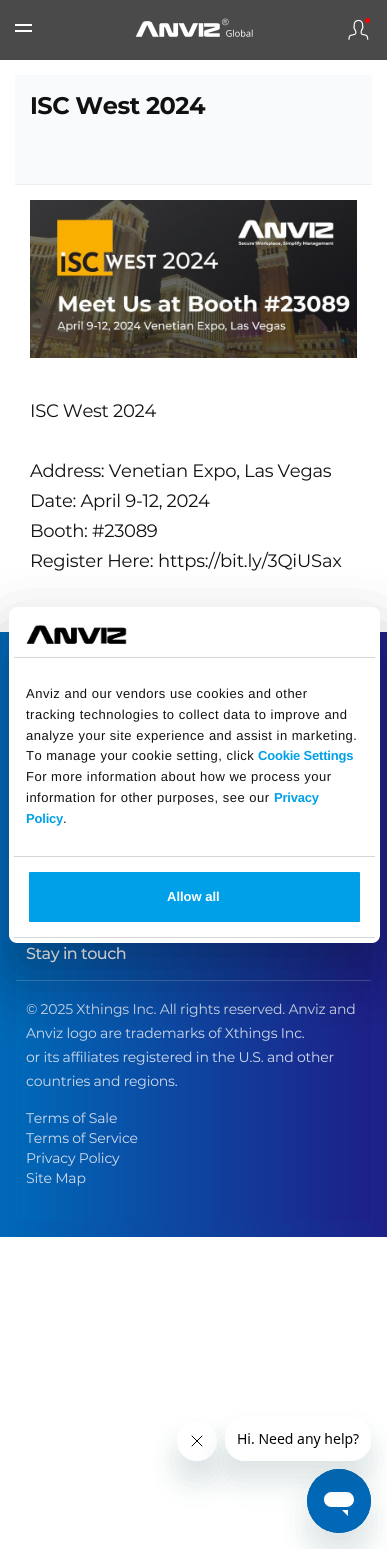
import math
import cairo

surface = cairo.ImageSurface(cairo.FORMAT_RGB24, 387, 1549)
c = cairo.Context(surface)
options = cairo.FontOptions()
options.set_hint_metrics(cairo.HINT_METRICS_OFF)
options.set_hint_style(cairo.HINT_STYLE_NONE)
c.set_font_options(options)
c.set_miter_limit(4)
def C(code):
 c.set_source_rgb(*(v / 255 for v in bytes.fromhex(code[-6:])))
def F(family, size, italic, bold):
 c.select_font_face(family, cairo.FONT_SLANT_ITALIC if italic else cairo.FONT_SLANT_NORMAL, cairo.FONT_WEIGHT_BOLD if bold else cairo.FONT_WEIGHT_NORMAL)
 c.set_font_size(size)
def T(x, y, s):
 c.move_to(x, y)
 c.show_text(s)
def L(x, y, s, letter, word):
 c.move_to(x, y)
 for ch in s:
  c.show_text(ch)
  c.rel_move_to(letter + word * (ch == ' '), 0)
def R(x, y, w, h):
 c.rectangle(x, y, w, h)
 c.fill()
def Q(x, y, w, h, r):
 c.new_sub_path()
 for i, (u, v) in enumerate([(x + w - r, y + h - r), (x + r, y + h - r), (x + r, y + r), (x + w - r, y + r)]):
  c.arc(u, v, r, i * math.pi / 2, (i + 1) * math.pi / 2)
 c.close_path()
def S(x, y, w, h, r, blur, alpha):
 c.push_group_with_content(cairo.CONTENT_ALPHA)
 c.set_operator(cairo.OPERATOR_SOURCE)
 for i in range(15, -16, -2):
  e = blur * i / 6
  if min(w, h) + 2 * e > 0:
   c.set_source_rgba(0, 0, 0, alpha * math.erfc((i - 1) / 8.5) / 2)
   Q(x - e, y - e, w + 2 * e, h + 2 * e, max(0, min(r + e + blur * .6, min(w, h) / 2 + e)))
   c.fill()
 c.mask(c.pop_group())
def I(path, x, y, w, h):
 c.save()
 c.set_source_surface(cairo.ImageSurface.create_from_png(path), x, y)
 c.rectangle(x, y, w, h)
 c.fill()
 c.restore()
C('ffffff')
c.paint()
C('4a4a4a')
R(0,0,387,60)
C('ffffff')
R(15,24,17,2)
R(15,30,17,2)
I('1.png',135,18,118,19)
I('2.png',348,19,21,21)
C('ff0000')
c.arc(367.5,20.5,2.5,0,2 * math.pi)
c.fill()
C('f8fafc')
R(15,75,357,109)
C('eeeeee')
R(15,184,357,1)
F('Montserrat',24,0,1)
C('111111')
L(30,114,'ISC West 2024',-.5,0)
I('3.png',30,200,327,158)
F('Montserrat Thin',18,0,0)
L(30,417,'ISC West 2024',-.3,0)
L(30,477,'Address: Venetian Expo, Las Vegas',-.3,0)
L(30,507,'Date: April 9-12, 2024',-.3,0)
L(30,537,'Booth: #23089',-.3,0)
L(30,567,'Register Here:',-.3,0)
L(158,567,'https://bit.ly/3QiUSax',-.2,0)
gradient = cairo.LinearGradient(0,935,387,935)
gradient.add_color_stop_rgba(0,0,0.408,0.718,1)
gradient.add_color_stop_rgba(1,0.114,0.125,0.533,1)
c.set_source(gradient)
R(0,632,387,605)
gradient = cairo.LinearGradient(16,935,371,935)
gradient.add_color_stop_rgba(0,0,0.408,0.718,1)
gradient.add_color_stop_rgba(1,0.114,0.125,0.533,1)
c.set_source(gradient)
R(16,942,355,279)
gradient = cairo.LinearGradient(16,935,371,935)
gradient.add_color_stop_rgba(0,0.2,0.525,0.773,1)
gradient.add_color_stop_rgba(1,0.29,0.302,0.627,1)
c.set_source(gradient)
R(16,980,355,1)
F('Montserrat Medium',16,0,0)
C('ffffff')
L(26,959,'Stay in touch',-.5,0)
F('Montserrat Thin',14,0,0)
C('cfdaec')
L(26,1014,'© 2025 Xthings Inc. All rights reserved. Anviz and',-.2,0)
L(26,1038,'Anviz logo are trademarks of Xthings Inc.',-.2,0)
L(26,1062,'or its affiliates registered in the U.S. and other',-.2,0)
L(26,1086,'countries and regions.',-.2,0)
L(26,1123,'Terms of Sale',-.2,0)
L(26,1143,'Terms of Service',-.2,0)
L(26,1163,'Privacy Policy',-.2,0)
L(26,1183,'Site Map',-.2,0)
C('000000')
S(9,639,371,336,8,34,.3)
C('ffffff')
Q(9,607,371,336,8)
c.fill()
C('d6d6d6')
R(14,657,361,1)
I('4.png',26,624,101,20)
R(14,856,361,1)
F('Liberation Sans',13,0,0)
C('111111')
L(26,698,'Anviz and our vendors use cookies and other',.5,0)
L(26,719,'tracking technologies to collect data to improve and',.5,0)
L(26,740,'analyze your site experience and assist in marketing.',.5,0)
L(26,760,'To manage your cookie setting, click',.5,0)
F('Liberation Sans',13,0,1)
C('00a0e8')
L(258,760,'Cookie Settings',-.2,0)
F('Liberation Sans',13,0,0)
C('111111')
L(26,781,'For more information about how we process your',.5,0)
L(26,802,'information for other purposes, see our',.5,0)
F('Liberation Sans',13,0,1)
C('00a0e8')
L(274,802,'Privacy',-.2,0)
L(26,823,'Policy',-.2,0)
F('Liberation Sans',13,0,0)
C('111111')
L(63,823,'.',.5,0)
C('d6d6d6')
R(14,937,361,1)
C('00a0e8')
Q(28,871,333,52,2)
c.fill_preserve()
C('ffffff')
c.stroke()
F('Liberation Sans',13,0,1)
T(167,901,'Allow all')
c.save()
c.set_fill_rule(cairo.FILL_RULE_EVEN_ODD)
c.new_path()
c.move_to(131,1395)
c.line_to(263,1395)
c.line_to(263,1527)
c.line_to(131,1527)
c.close_path()
c.move_to(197,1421)
c.curve_to(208,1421,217,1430,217,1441)
c.curve_to(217,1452,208,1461,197,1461)
c.curve_to(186,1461,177,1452,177,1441)
c.curve_to(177,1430,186,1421,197,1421)
c.close_path()
c.clip()
C('17494d')
S(177,1441,40,40,20,15,.15)
c.restore()
I('6.png',191,1435,12,12)
C('17494d')
S(307,1489,64,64,32,15,.15)
I('7.png',307,1469,64,64)
c.save()
c.set_fill_rule(cairo.FILL_RULE_EVEN_ODD)
c.new_path()
c.move_to(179,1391)
c.line_to(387,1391)
c.line_to(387,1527)
c.line_to(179,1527)
c.close_path()
c.move_to(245,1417)
c.line_to(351,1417)
c.curve_to(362,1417,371,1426,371,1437)
c.line_to(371,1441)
c.curve_to(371,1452,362,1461,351,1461)
c.line_to(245,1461)
c.curve_to(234,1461,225,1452,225,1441)
c.line_to(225,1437)
c.curve_to(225,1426,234,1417,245,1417)
c.close_path()
c.clip()
S(225,1437,146,44,20,15,.15)
c.restore()
I('5.png',226,1433,139,28)
surface.write_to_png('o.png')
